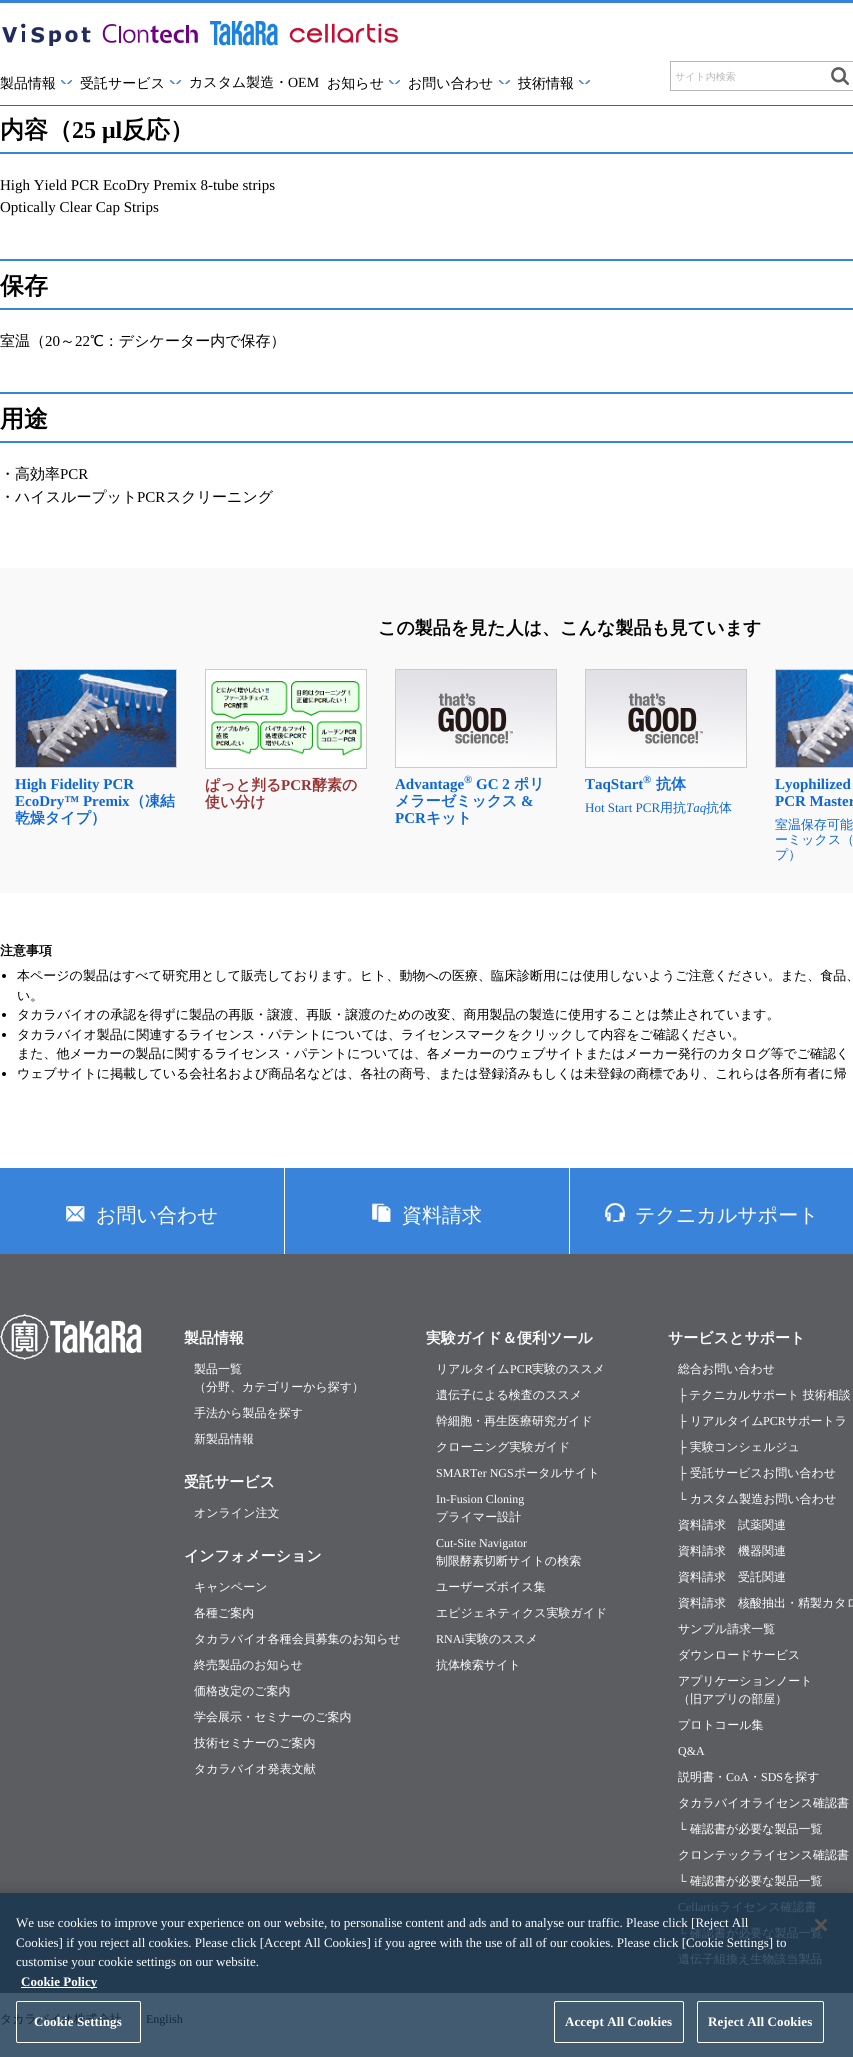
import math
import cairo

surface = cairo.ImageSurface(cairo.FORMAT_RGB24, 853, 2057)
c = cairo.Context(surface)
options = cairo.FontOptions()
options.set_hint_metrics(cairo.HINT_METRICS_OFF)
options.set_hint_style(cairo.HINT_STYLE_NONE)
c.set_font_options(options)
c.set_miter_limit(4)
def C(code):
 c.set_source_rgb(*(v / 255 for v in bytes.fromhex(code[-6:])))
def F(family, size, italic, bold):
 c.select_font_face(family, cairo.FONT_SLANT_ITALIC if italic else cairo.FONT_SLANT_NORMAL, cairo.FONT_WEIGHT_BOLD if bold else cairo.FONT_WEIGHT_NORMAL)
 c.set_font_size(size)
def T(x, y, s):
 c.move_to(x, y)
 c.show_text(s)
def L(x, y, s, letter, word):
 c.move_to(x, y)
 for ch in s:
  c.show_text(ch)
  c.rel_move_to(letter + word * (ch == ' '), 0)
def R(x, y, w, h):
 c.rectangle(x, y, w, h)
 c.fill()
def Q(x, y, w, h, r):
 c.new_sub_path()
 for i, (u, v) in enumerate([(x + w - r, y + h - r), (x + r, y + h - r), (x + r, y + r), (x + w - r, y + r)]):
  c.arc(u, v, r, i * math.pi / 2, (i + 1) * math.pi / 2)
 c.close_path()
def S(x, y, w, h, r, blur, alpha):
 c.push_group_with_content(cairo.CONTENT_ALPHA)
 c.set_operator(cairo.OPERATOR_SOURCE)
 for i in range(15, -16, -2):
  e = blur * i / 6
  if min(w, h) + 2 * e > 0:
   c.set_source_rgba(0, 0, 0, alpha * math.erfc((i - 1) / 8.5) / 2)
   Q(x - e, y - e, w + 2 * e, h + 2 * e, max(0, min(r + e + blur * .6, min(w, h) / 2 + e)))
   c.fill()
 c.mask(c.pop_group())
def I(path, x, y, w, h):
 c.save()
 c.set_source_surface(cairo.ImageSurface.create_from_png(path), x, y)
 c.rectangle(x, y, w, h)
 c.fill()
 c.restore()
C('ffffff')
c.paint()
C('435b71')
R(0,1993,853,64)
C('5d5d5f')
R(0,105,853,1)
C('3983da')
R(0,0,853,3)
I('1.png',2,21,396,25)
F('WenQuanYi Zen Hei Medium',14,0,0)
C('000000')
T(0,88,'製品情報')
I('2.png',61,80,11,4)
T(80,88,'受託サービス')
I('2.png',170,80,11,4)
T(189,87,'カスタム製造・')
F('Liberation Serif',14,0,0)
T(288,87,'OEM')
F('WenQuanYi Zen Hei Medium',14,0,0)
T(327,88,'お知らせ')
I('2.png',389,80,11,4)
T(408,88,'お問い合わせ')
I('2.png',499,80,11,4)
T(518,88,'技術情報')
I('2.png',579,80,11,4)
c.rectangle(670.5,61.5,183,29)
C('b6b7b7')
c.set_line_width(1)
c.stroke()
F('WenQuanYi Zen Hei Medium',10,0,0)
T(675,80,'サイト内検索')
I('3.png',831,67,18,18)
C('3983da')
R(0,152,853,2)
F('WenQuanYi Zen Hei',24,0,1)
C('000000')
T(0,138,'内容（')
F('Liberation Serif',24,0,1)
T(72,138,'25 μl')
F('WenQuanYi Zen Hei',24,0,1)
T(122,138,'反応）')
F('Liberation Serif',15,0,0)
T(0,190,'High Yield PCR EcoDry Premix 8-tube strips')
T(0,212,'Optically Clear Cap Strips')
C('3983da')
R(0,259,853,2)
R(0,308,853,2)
F('WenQuanYi Zen Hei',24,0,1)
C('000000')
T(0,294,'保存')
F('WenQuanYi Zen Hei Medium',15,0,0)
T(0,346,'室温（')
F('Liberation Serif',15,0,0)
T(45,346,'20')
F('WenQuanYi Zen Hei Medium',15,0,0)
T(60,346,'～')
F('Liberation Serif',15,0,0)
T(75,346,'22')
F('WenQuanYi Zen Hei Medium',15,0,0)
T(90,346,'℃：デシケーター内で保存）')
C('3983da')
R(0,392,853,2)
R(0,441,853,2)
F('WenQuanYi Zen Hei',24,0,1)
C('000000')
T(0,427,'用途')
F('WenQuanYi Zen Hei Medium',15,0,0)
T(0,479,'・高効率')
F('Liberation Serif',15,0,0)
T(60,479,'PCR')
F('WenQuanYi Zen Hei Medium',15,0,0)
T(0,502,'・ハイスループット')
F('Liberation Serif',15,0,0)
T(137,502,'PCR')
F('WenQuanYi Zen Hei Medium',15,0,0)
T(166,502,'スクリーニング')
C('f9f9f9')
R(0,568,853,325)
F('WenQuanYi Zen Hei',18,0,1)
C('000000')
T(378,634,'この製品を見た人は、こんな製品も見ています')
c.rectangle(15.5,669.5,161,98)
C('cccccc')
c.stroke()
I('4.png',16,670,160,97)
F('Liberation Serif',15,0,1)
C('0e66d8')
T(15,789,'High Fidelity PCR')
T(15,806,'EcoDry™ Premix')
F('WenQuanYi Zen Hei',15,0,1)
T(130,806,'（凍結')
T(15,823,'乾燥タイプ）')
c.rectangle(205.5,669.5,161,99)
C('cccccc')
c.stroke()
I('5.png',206,670,160,98)
C('993333')
T(205,790,'ぱっと判る')
F('Liberation Serif',15,0,1)
T(281,790,'PCR')
F('WenQuanYi Zen Hei',15,0,1)
T(312,790,'酵素の')
T(205,807,'使い分け')
c.rectangle(395.5,669.5,161,98)
C('cccccc')
c.stroke()
I('6.png',396,670,160,97)
F('Liberation Serif',15,0,1)
C('0e66d8')
T(395,789,'Advantage')
F('Liberation Serif',11,0,1)
T(464,783,'®')
F('Liberation Serif',15,0,1)
T(476,789,'GC 2')
F('WenQuanYi Zen Hei',15,0,1)
T(514,789,'ポリ')
T(395,806,'メラーゼミックス')
F('Liberation Serif',15,0,1)
T(521,806,'&')
T(395,823,'PCR')
F('WenQuanYi Zen Hei',15,0,1)
T(426,823,'キット')
c.rectangle(585.5,669.5,161,98)
C('cccccc')
c.stroke()
I('6.png',586,670,160,97)
F('Liberation Serif',15,0,1)
C('0e66d8')
T(585,789,'TaqStart')
F('Liberation Serif',11,0,1)
T(643,783,'®')
F('WenQuanYi Zen Hei',15,0,1)
T(656,789,'抗体')
F('Liberation Serif',13,0,0)
T(585,812,'Hot Start PCR')
F('WenQuanYi Zen Hei Medium',13,0,0)
T(660,812,'用抗')
F('Liberation Serif',13,1,0)
T(686,812,'Taq')
F('WenQuanYi Zen Hei Medium',13,0,0)
T(706,812,'抗体')
c.rectangle(775.5,669.5,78,98)
C('cccccc')
c.stroke()
I('7.png',776,670,77,97)
F('Liberation Serif',15,0,1)
C('0e66d8')
T(775,789,'Lyophilized')
T(775,806,'PCR Master')
F('WenQuanYi Zen Hei Medium',13,0,0)
T(775,829,'室温保存可能')
T(775,844,'ーミックス（')
T(775,859,'プ）')
F('WenQuanYi Zen Hei',13,0,1)
C('000000')
T(0,955,'注意事項')
c.new_path()
c.arc(4,976,2,0,2 * math.pi)
c.fill()
F('WenQuanYi Zen Hei Medium',13,0,0)
T(17,980,'本ページの製品はすべて研究用として販売しております。ヒト、動物への医療、臨床診断用には使用しないようご注意ください。また、食品、')
T(17,1000,'い。')
c.new_path()
c.arc(4,1015,2,0,2 * math.pi)
c.fill()
T(17,1019,'タカラバイオの承認を得ずに製品の再販・譲渡、再販・譲渡のための改変、商用製品の製造に使用することは禁止されています。')
c.new_path()
c.arc(4,1035,2,0,2 * math.pi)
c.fill()
T(17,1039,'タカラバイオ製品に関連するライセンス・パテントについては、ライセンスマークをクリックして内容をご確認ください。')
T(17,1058,'また、他メーカーの製品に関するライセンス・パテントについては、各メーカーのウェブサイトまたはメーカー発行のカタログ等でご確認く')
c.new_path()
c.arc(4,1074,2,0,2 * math.pi)
c.fill()
T(17,1078,'ウェブサイトに掲載している会社名および商品名などは、各社の商号、または登録済みもしくは未登録の商標であり、これらは各所有者に帰')
C('3983da')
R(0,1168,853,86)
C('ffffff')
R(284,1168,1,86)
I('8.png',66,1206,19,16)
F('WenQuanYi Zen Hei Medium',20,0,0)
T(96,1222,'お問い合わせ')
R(569,1168,1,86)
I('9.png',372,1203,19,19)
T(402,1222,'資料請求')
I('10.png',605,1203,20,19)
T(635,1222,'テクニカルサポート')
C('5c5d60')
R(0,1254,853,639)
C('223b51')
R(0,1893,853,100)
I('11.png',0,1314,142,46)
F('WenQuanYi Zen Hei',15,0,1)
C('ffffff')
T(184,1343,'製品情報')
F('WenQuanYi Zen Hei Medium',12,0,0)
T(194,1373,'製品一覧')
T(194,1391,'（分野、カテゴリーから探す）')
T(194,1417,'手法から製品を探す')
T(194,1443,'新製品情報')
F('WenQuanYi Zen Hei',15,0,1)
T(184,1487,'受託サービス')
F('WenQuanYi Zen Hei Medium',12,0,0)
T(194,1517,'オンライン注文')
F('WenQuanYi Zen Hei',15,0,1)
T(184,1561,'インフォメーション')
F('WenQuanYi Zen Hei Medium',12,0,0)
T(194,1591,'キャンペーン')
T(194,1617,'各種ご案内')
T(194,1643,'タカラバイオ各種会員募集のお知らせ')
T(194,1669,'終売製品のお知らせ')
T(194,1695,'価格改定のご案内')
T(194,1721,'学会展示・セミナーのご案内')
T(194,1747,'技術セミナーのご案内')
T(194,1773,'タカラバイオ発表文献')
F('WenQuanYi Zen Hei',15,0,1)
T(426,1343,'実験ガイド＆便利ツール')
F('WenQuanYi Zen Hei Medium',12,0,0)
T(436,1373,'リアルタイム')
F('Liberation Serif',12,0,0)
T(510,1373,'PCR')
F('WenQuanYi Zen Hei Medium',12,0,0)
T(532,1373,'実験のススメ')
T(436,1399,'遺伝子による検査のススメ')
T(436,1425,'幹細胞・再生医療研究ガイド')
T(436,1451,'クローニング実験ガイド')
F('Liberation Serif',12,0,0)
T(436,1477,'SMARTer NGS')
F('WenQuanYi Zen Hei Medium',12,0,0)
T(514,1477,'ポータルサイト')
F('Liberation Serif',12,0,0)
T(436,1503,'In-Fusion Cloning')
F('WenQuanYi Zen Hei Medium',12,0,0)
T(436,1521,'プライマー設計')
F('Liberation Serif',12,0,0)
T(436,1547,'Cut-Site Navigator')
F('WenQuanYi Zen Hei Medium',12,0,0)
T(436,1565,'制限酵素切断サイトの検索')
T(436,1591,'ユーザーズボイス集')
T(436,1617,'エピジェネティクス実験ガイド')
F('Liberation Serif',12,0,0)
T(436,1643,'RNAi')
F('WenQuanYi Zen Hei Medium',12,0,0)
T(465,1643,'実験のススメ')
T(436,1669,'抗体検索サイト')
F('WenQuanYi Zen Hei',15,0,1)
T(668,1343,'サービスとサポート')
F('WenQuanYi Zen Hei Medium',12,0,0)
T(678,1373,'総合お問い合わせ')
F('Liberation Serif',12,0,0)
T(678,1399,'├')
F('WenQuanYi Zen Hei Medium',12,0,0)
T(689,1399,'テクニカルサポート 技術相談')
F('Liberation Serif',12,0,0)
T(678,1425,'├')
F('WenQuanYi Zen Hei Medium',12,0,0)
T(690,1425,'リアルタイム')
F('Liberation Serif',12,0,0)
T(763,1425,'PCR')
F('WenQuanYi Zen Hei Medium',12,0,0)
T(786,1425,'サポートラ')
F('Liberation Serif',12,0,0)
T(678,1451,'├')
F('WenQuanYi Zen Hei Medium',12,0,0)
T(690,1451,'実験コンシェルジュ')
F('Liberation Serif',12,0,0)
T(678,1477,'├')
F('WenQuanYi Zen Hei Medium',12,0,0)
T(690,1477,'受託サービスお問い合わせ')
F('Liberation Serif',12,0,0)
T(678,1503,'└')
F('WenQuanYi Zen Hei Medium',12,0,0)
T(690,1503,'カスタム製造お問い合わせ')
T(678,1529,'資料請求　試薬関連')
T(678,1555,'資料請求　機器関連')
T(678,1581,'資料請求　受託関連')
T(678,1607,'資料請求　核酸抽出・精製カタロ')
T(678,1633,'サンプル請求一覧')
T(678,1659,'ダウンロードサービス')
T(678,1685,'アプリケーションノート')
T(678,1703,'（旧アプリの部屋）')
T(678,1729,'プロトコール集')
F('Liberation Serif',12,0,0)
T(678,1755,'Q&A')
F('WenQuanYi Zen Hei Medium',12,0,0)
T(678,1781,'説明書・')
F('Liberation Serif',12,0,0)
T(726,1781,'CoA')
F('WenQuanYi Zen Hei Medium',12,0,0)
T(749,1781,'・')
F('Liberation Serif',12,0,0)
T(761,1781,'SDS')
F('WenQuanYi Zen Hei Medium',12,0,0)
T(783,1781,'を探す')
T(678,1807,'タカラバイオライセンス確認書')
F('Liberation Serif',12,0,0)
T(678,1833,'└')
F('WenQuanYi Zen Hei Medium',12,0,0)
T(690,1833,'確認書が必要な製品一覧')
T(678,1859,'クロンテックライセンス確認書')
F('Liberation Serif',12,0,0)
T(678,1885,'└')
F('WenQuanYi Zen Hei Medium',12,0,0)
T(690,1885,'確認書が必要な製品一覧')
F('Liberation Serif',12,0,0)
C('435b71')
T(678,1911,'Cellartis')
F('WenQuanYi Zen Hei Medium',12,0,0)
T(719,1911,'ライセンス確認書')
F('Liberation Serif',12,0,0)
T(678,1937,'└')
F('WenQuanYi Zen Hei Medium',12,0,0)
T(690,1937,'確認書が必要な製品一覧')
T(678,1963,'遺伝子組換え生物該当製品')
C('10283e')
T(0,2023,'タカラバイオ株式会社')
F('Liberation Serif',12,0,0)
T(146,2023,'English')
c.save()
c.rectangle(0,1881,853,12)
c.clip()
C('000000')
S(0,1893,853,164,0,9,.2)
c.restore()
F('Liberation Serif',13,0,0)
C('ffffff')
T(16,1927,'We use cookies to improve your experience on our website, to personalise content and ads and to analyse our traffic. Please click [Reject All')
T(16,1947,'Cookies] if you reject all cookies. Please click [Accept All Cookies] if you agree with the use of all of our cookies. Please click [Cookie Settings] to')
T(16,1966,'customise your cookie settings on our website.')
R(21,1987,76,1)
F('Liberation Serif',13,0,1)
T(21,1986,'Cookie Policy')
Q(16.5,2001.5,124,41,1.5)
c.stroke()
L(34,2026,'Cookie Settings',.1,0)
Q(554.5,2001.5,129,41,1.5)
c.stroke()
L(565,2026,'Accept All Cookies',.1,0)
Q(697.5,2001.5,126,41,1.5)
c.stroke()
L(708,2026,'Reject All Cookies',.1,0)
I('12.png',815,1919,12,12)
surface.write_to_png('o.png')
